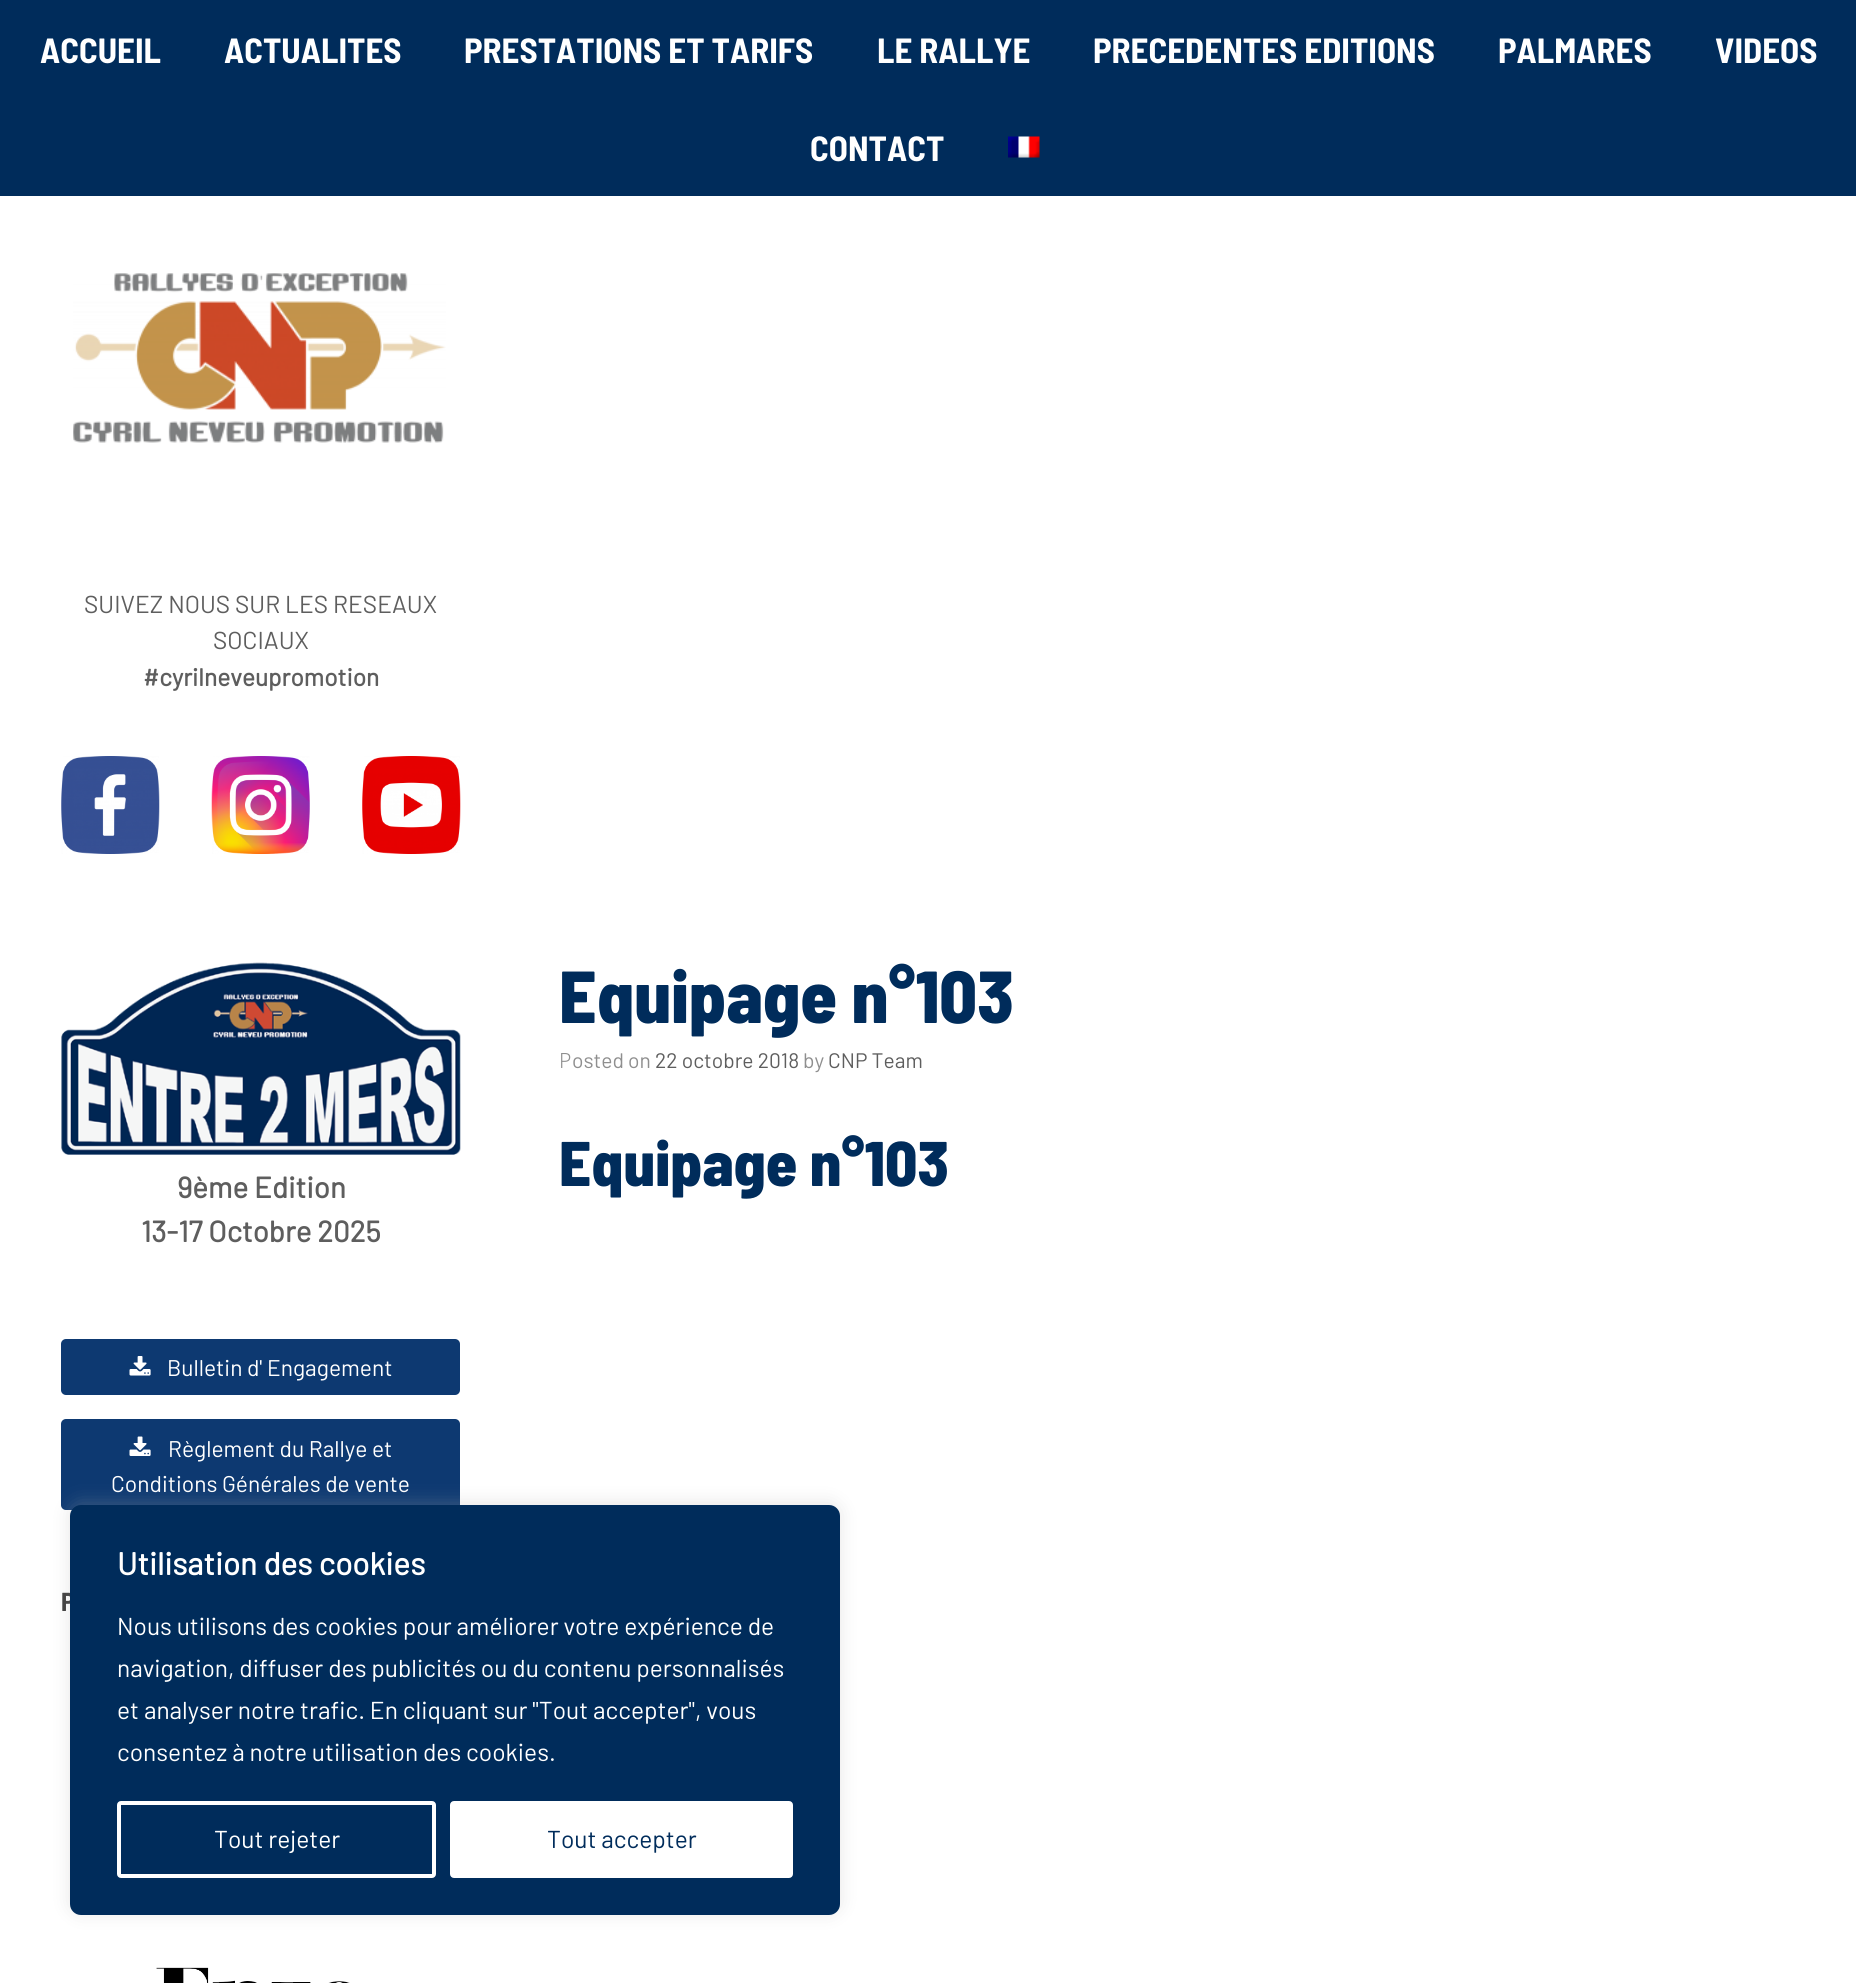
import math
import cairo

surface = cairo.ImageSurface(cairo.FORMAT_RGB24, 1856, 1983)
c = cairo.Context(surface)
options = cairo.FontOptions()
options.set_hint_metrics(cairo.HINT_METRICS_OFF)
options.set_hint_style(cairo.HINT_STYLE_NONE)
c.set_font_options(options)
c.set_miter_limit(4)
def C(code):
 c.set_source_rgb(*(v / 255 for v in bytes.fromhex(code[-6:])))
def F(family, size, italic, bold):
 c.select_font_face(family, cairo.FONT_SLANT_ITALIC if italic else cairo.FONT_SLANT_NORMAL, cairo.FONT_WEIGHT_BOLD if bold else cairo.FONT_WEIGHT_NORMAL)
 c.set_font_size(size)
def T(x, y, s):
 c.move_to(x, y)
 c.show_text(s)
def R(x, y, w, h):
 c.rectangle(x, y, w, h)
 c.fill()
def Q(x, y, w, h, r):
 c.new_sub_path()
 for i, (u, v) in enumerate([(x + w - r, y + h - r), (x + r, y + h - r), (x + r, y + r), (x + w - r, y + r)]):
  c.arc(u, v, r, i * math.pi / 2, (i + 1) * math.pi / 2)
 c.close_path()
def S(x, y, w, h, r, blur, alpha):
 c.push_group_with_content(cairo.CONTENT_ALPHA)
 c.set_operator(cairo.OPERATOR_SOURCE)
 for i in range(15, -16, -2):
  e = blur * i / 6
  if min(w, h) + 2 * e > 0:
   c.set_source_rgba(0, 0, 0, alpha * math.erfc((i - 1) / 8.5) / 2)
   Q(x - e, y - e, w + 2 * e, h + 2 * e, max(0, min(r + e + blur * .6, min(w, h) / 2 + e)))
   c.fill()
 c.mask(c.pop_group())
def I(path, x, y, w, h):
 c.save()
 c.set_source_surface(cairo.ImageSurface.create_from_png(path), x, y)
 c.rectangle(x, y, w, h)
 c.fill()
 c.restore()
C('ffffff')
c.paint()
C('002c5b')
R(0,0,1856,196)
F('Barlow Semi Condensed',35,0,1)
C('ffffff')
T(40,63,'ACCUEIL')
T(224,63,'ACTUALITES')
T(464,63,'PRESTATIONS ET TARIFS')
T(877,63,'LE RALLYE')
T(1093,63,'PRECEDENTES EDITIONS')
T(1498,63,'PALMARES')
T(1715,63,'VIDEOS')
T(810,161,'CONTACT')
I('1.png',1008,136,32,22)
I('2.png',73,273,373,170)
F('Barlow',24.5,0,0)
C('5e5e5e')
T(84,613,'SUIVEZ NOUS SUR LES RESEAUX')
T(213,649,'SOCIAUX')
F('Barlow',24.5,0,1)
T(143,686,'#cyrilneveupromotion')
I('3.png',61,756,99,98)
I('4.png',211,756,99,98)
I('5.png',362,756,99,98)
I('6.png',61,962,400,193)
F('Barlow',29.5,0,1)
T(177,1198,'9ème Edition')
T(141,1242,'13-17 Octobre 2025')
C('0d3971')
Q(61,1339,399,56,5)
c.fill()
I('7.png',129,1356,22,20)
F('Barlow',22.75,0,0)
C('ffffff')
T(167,1376,'Bulletin d\' Engagement')
C('0d3971')
Q(61,1419,399,91,5)
c.fill()
I('8.png',129,1436,22,20)
C('ffffff')
T(168,1457,'Règlement du Rallye et')
T(111,1492,'Conditions Générales de vente')
F('Barlow Semi Condensed',26,0,1)
C('3b3b3b')
T(61,1611,'P')
I('9.png',156,1967,194,16)
F('Barlow Semi Condensed ExtraBold',73.5,0,0)
C('002c5b')
T(559,1023,'Equipage n°103')
F('Noto Sans Light',21,0,0)
C('8f8f8f')
T(559,1068,'P')
F('Barlow',21,0,0)
T(572,1068,'osted on')
C('5e5e5e')
T(655,1068,'22 octobre 2018')
C('8f8f8f')
T(803,1068,'by')
C('5e5e5e')
T(828,1068,'CNP Team')
F('Barlow Semi Condensed ExtraBold',63,0,0)
C('002c5b')
T(559,1186,'Equipage n°103')
C('acabab')
S(70,1503,770,410,11,9,.3)
C('002c5b')
Q(71,1506,768,408,10)
c.fill_preserve()
c.stroke()
F('Barlow',31.5,0,1)
C('ffffff')
T(117,1575,'Utilisation des cookies')
F('Barlow',24.5,0,0)
T(117,1635,'Nous utilisons des cookies pour améliorer votre expérience de')
T(117,1677,'navigation, diffuser des publicités ou du contenu personnalisés')
T(117,1719,'et analyser notre trafic. En cliquant sur "Tout accepter", vous')
T(117,1761,'consentez à notre utilisation des cookies.')
Q(119,1803,315,73,2)
c.set_line_width(4)
c.stroke()
T(214,1848,'Tout rejeter')
Q(452,1803,339,73,2)
c.fill_preserve()
c.stroke()
C('002c5b')
T(547,1848,'Tout accepter')
surface.write_to_png('o.png')
